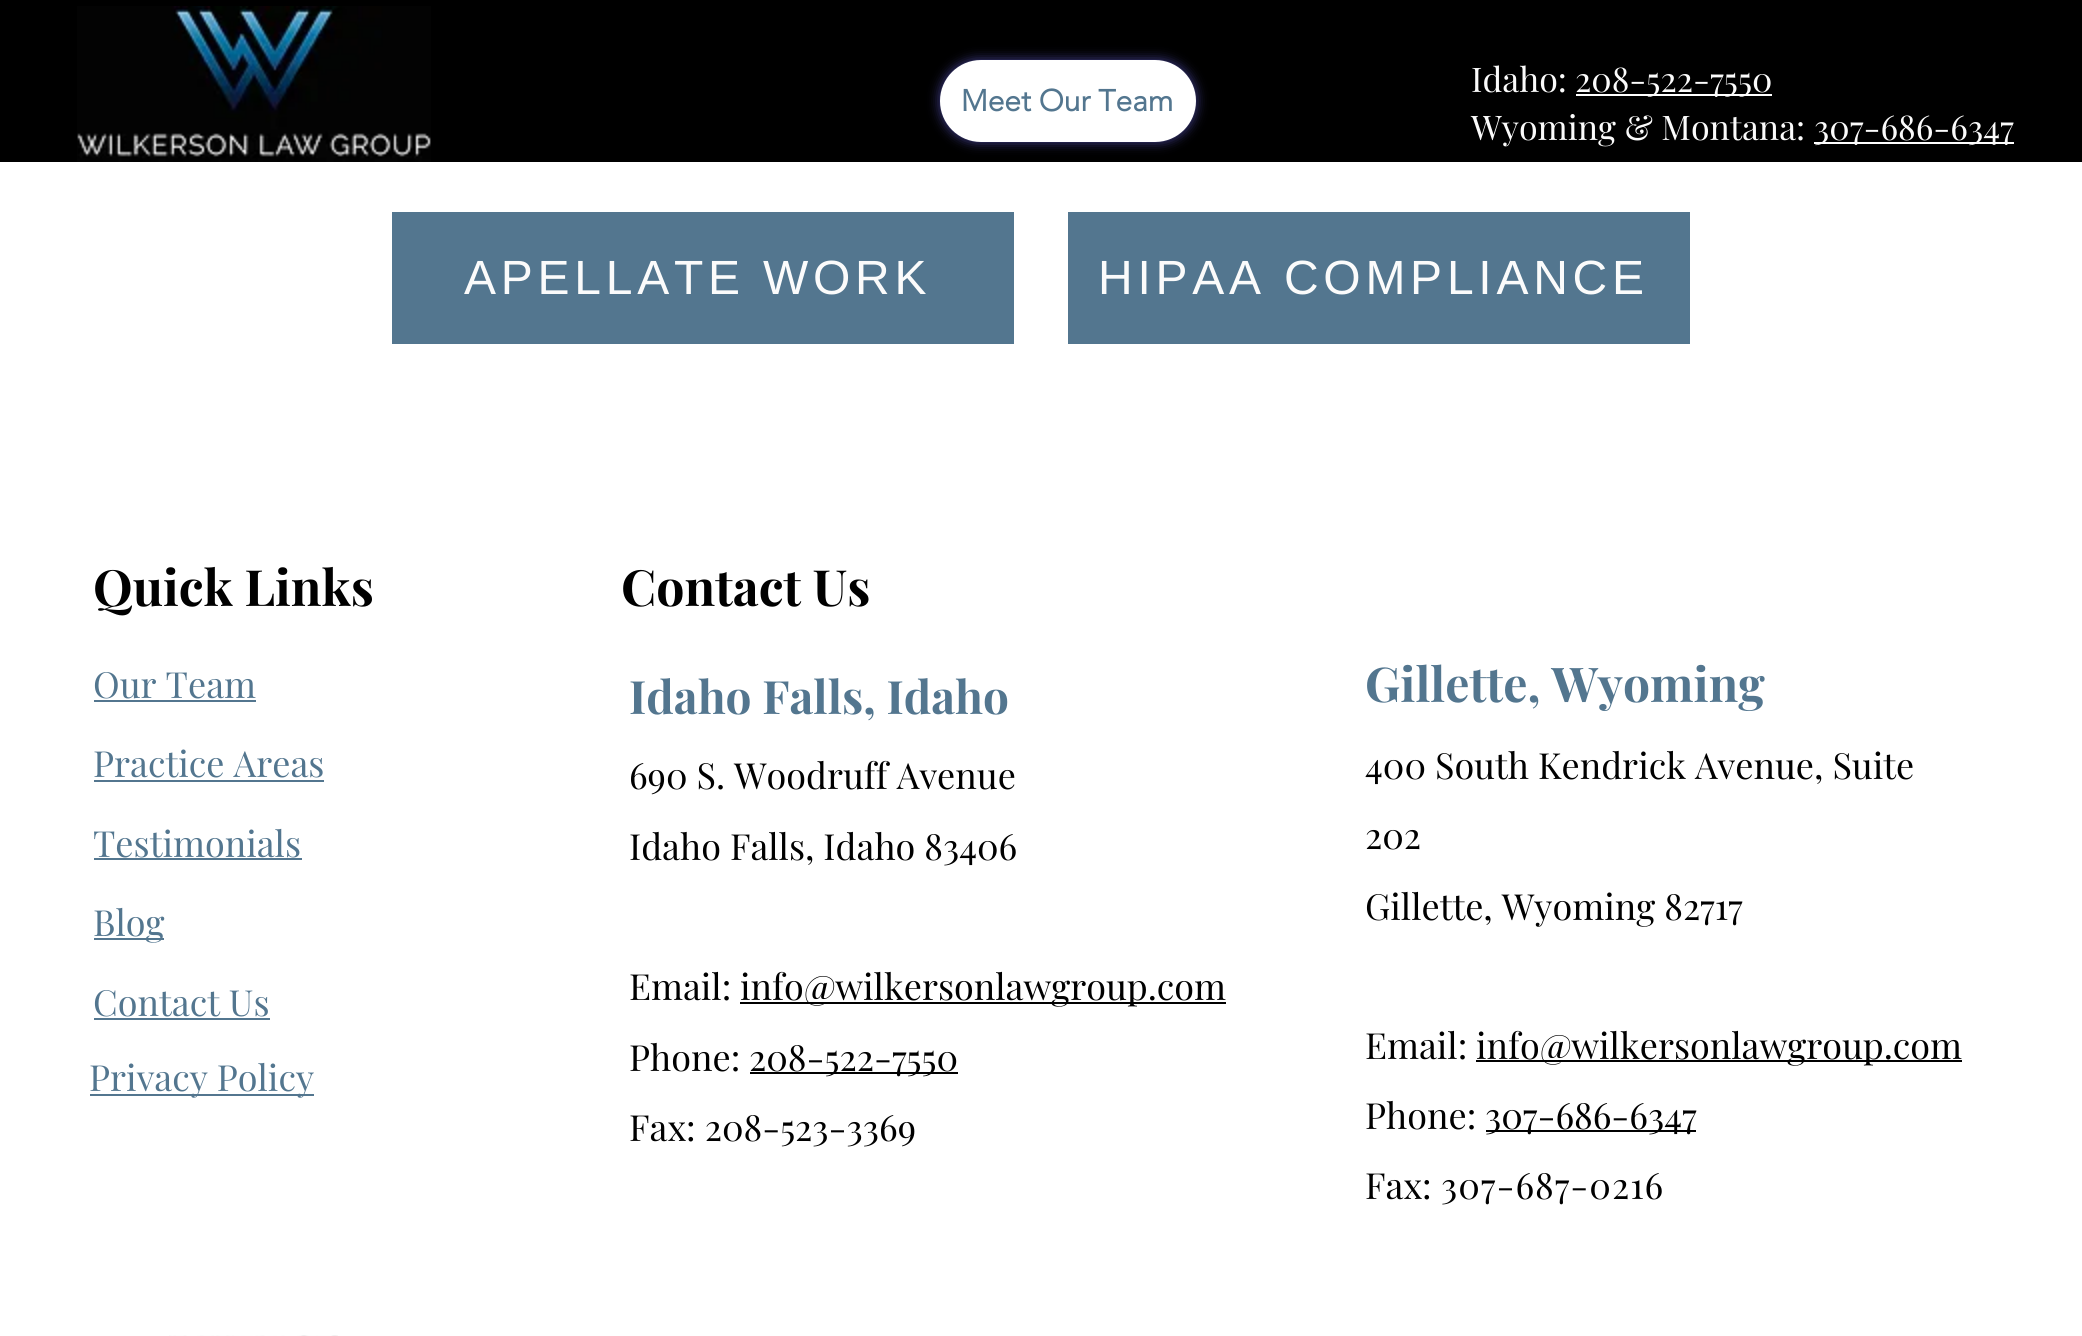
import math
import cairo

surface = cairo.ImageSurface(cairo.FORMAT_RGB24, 2082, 1336)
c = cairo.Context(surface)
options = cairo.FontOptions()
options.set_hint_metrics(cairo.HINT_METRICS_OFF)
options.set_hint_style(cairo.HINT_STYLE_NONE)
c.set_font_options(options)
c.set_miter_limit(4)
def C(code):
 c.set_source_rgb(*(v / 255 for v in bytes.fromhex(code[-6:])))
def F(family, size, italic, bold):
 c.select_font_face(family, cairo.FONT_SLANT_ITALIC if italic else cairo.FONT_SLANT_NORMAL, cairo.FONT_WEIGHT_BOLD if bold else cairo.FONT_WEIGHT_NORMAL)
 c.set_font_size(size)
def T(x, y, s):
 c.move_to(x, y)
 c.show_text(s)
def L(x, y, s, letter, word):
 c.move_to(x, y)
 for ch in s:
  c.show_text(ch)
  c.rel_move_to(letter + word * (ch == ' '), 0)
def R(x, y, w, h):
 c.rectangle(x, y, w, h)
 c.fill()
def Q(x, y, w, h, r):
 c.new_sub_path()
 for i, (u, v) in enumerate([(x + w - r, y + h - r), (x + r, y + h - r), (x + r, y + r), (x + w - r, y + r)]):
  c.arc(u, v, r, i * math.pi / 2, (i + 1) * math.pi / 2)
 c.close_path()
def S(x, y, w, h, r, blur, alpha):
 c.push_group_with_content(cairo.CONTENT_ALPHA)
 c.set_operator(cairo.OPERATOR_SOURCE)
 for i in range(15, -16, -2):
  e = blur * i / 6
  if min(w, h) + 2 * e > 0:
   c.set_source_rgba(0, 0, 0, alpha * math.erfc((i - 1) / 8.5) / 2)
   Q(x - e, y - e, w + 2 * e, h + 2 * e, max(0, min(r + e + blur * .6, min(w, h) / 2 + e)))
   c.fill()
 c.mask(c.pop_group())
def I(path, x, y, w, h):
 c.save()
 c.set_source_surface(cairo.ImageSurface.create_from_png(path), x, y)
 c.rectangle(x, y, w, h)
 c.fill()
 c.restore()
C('ffffff')
c.paint()
C('000000')
R(0,0,2082,162)
I('1.png',77,6,354,156)
C('5f5bcd')
S(940,60,256,82,41,6,.7)
C('ffffff')
Q(940,60,256,82,41)
c.fill()
F('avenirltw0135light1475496',30,0,1)
C('53768f')
T(961,111,'Meet Our Team')
F('Playfair Display',34,0,0)
C('fbfbfb')
T(1471,92,'Idaho:')
C('ffffff')
R(1576,94,196,2)
C('fbfbfb')
T(1575,92,'208-522-7550')
T(1471,140,'Wyoming & Montana:')
C('ffffff')
R(1814,142,200,2)
C('fbfbfb')
T(1814,140,'307-686-6347')
C('53768f')
R(392,212,622,132)
F('Liberation Sans',48,0,0)
C('fbfbfb')
L(464,294,'APELLATE WORK',4.75,0)
C('53768f')
R(1068,212,622,132)
C('fbfbfb')
L(1098,294,'HIPAA COMPLIANCE',4.75,0)
F('Playfair Display',50,0,1)
C('000000')
T(93,606,'Quick Links')
T(621,606,'Contact Us')
F('Playfair Display',36,0,0)
C('53768f')
T(93,698,'Our Team')
R(94,700,162,2)
F('Playfair Display',46,0,1)
T(629,714,'Idaho Falls, Idaho')
F('Playfair Display',36,0,0)
C('000000')
T(629,789,'690 S. Woodruff Avenue')
T(629,860,'Idaho Falls, Idaho 83406')
T(629,1000,'Email:')
R(740,1002,486,2)
T(740,1000,'info@wilkersonlawgroup.com')
T(629,1071,'Phone:')
R(750,1072,208,2)
T(749,1071,'208-522-7550')
T(629,1141,'Fax: 208-523-3369')
F('Playfair Display',48,0,1)
C('53768f')
T(1365,702,'Gillette, Wyoming')
F('Playfair Display',36,0,0)
C('000000')
T(1365,779,'400 South Kendrick Avenue, Suite')
T(1365,849,'202')
T(1365,920,'Gillette, Wyoming 82717')
T(1365,1059,'Email:')
R(1476,1060,486,2)
T(1476,1059,'info@wilkersonlawgroup.com')
T(1365,1129,'Phone:')
R(1486,1130,210,2)
T(1485,1129,'307-686-6347')
T(1365,1199,'Fax:')
L(1441,1199,'307-687-0216',1,0)
C('53768f')
T(93,777,'Practice Areas')
R(94,780,230,2)
T(93,857,'Testimonials')
R(94,858,208,2)
R(94,938,70,2)
T(93,936,'Blog')
T(93,1016,'Contact Us')
R(94,1018,176,2)
R(90,1094,224,2)
T(89,1091,'Privacy Policy')
I('2.png',169,1335,169,1)
surface.write_to_png('o.png')
